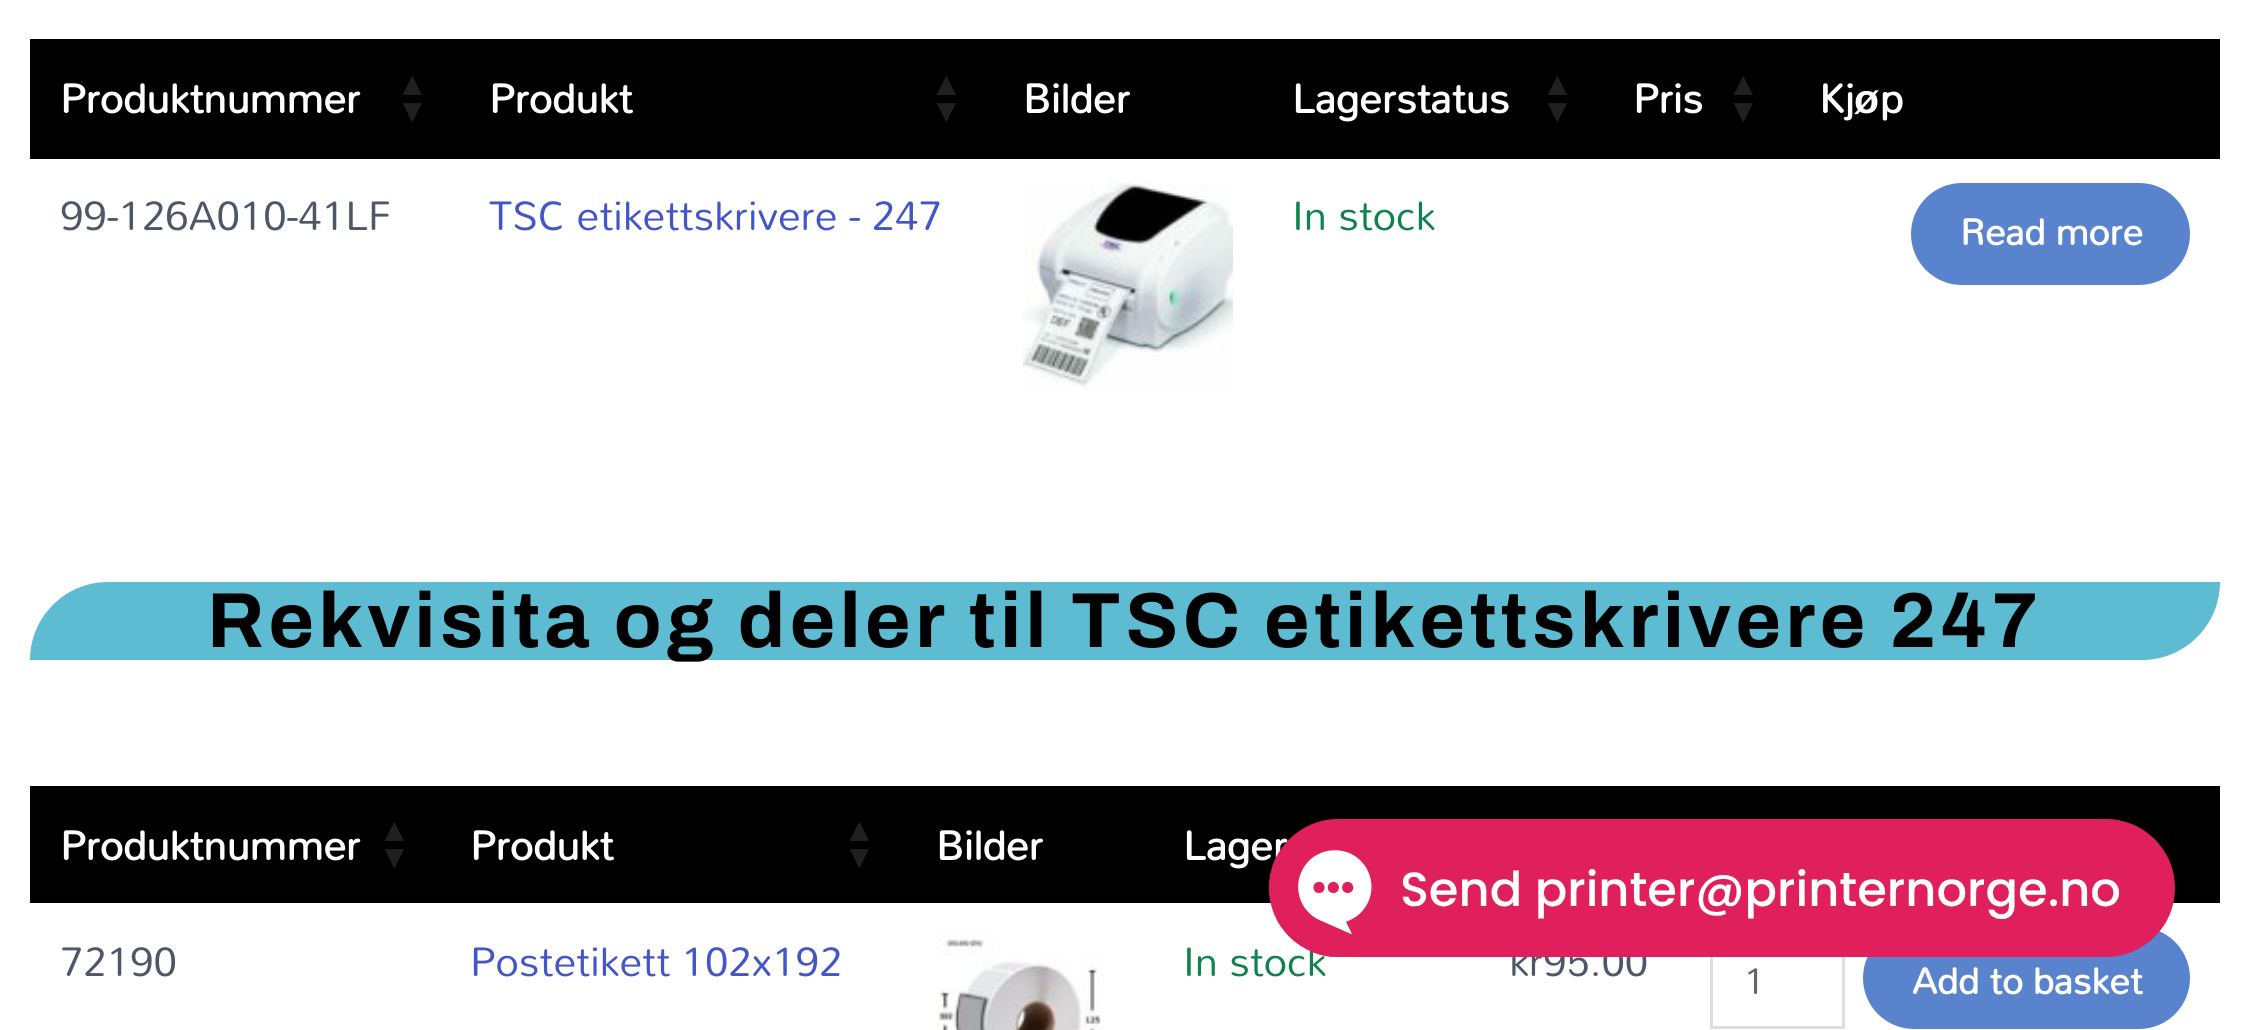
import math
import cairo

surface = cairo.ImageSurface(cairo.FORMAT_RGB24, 2250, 1030)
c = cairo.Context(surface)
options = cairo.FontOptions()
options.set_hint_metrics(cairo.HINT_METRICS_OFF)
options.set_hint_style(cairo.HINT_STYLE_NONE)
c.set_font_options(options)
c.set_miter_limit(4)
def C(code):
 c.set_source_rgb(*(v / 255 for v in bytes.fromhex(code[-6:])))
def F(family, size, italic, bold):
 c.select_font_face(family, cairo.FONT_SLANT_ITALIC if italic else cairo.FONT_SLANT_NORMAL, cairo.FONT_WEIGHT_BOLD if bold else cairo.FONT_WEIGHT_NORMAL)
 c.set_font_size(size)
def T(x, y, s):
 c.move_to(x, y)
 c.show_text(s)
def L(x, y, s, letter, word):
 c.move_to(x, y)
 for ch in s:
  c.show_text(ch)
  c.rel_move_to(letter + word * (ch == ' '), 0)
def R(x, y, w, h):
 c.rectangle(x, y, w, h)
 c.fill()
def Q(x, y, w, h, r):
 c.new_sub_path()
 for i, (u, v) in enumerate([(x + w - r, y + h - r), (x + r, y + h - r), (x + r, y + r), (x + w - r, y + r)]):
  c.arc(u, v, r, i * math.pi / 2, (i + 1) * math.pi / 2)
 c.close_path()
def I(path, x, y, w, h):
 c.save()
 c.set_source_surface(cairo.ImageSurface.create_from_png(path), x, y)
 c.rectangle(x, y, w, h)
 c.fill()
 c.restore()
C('ffffff')
c.paint()
C('000000')
R(30,39,963,120)
F('Mandali',41,0,1)
C('ffffff')
T(60,113,'Produktnummer')
F('Liberation Sans',33,0,1)
C('202020')
T(396,95,'▲')
T(396,122,'▼')
F('Mandali',41,0,1)
C('ffffff')
T(489,113,'Produkt')
F('Liberation Sans',33,0,1)
C('202020')
T(930,95,'▲')
T(930,122,'▼')
C('000000')
R(993,39,609,120)
F('Mandali',41,0,1)
C('ffffff')
T(1023,113,'Bilder')
T(1292,113,'Lagerstatus')
F('Liberation Sans',33,0,1)
C('202020')
T(1541,95,'▲')
T(1541,122,'▼')
C('000000')
R(1602,39,618,120)
F('Mandali',41,0,1)
C('ffffff')
T(1633,113,'Pris')
F('Liberation Sans',33,0,1)
C('202020')
T(1727,95,'▲')
T(1727,122,'▼')
F('Mandali',41,0,1)
C('ffffff')
T(1819,113,'Kj')
F('Liberation Sans',41,0,1)
T(1854,113,'ø')
F('Mandali',41,0,1)
T(1880,113,'p')
F('Mandali',41,0,0)
C('4e5768')
T(60,230,'99-126A010-41LF')
C('4256ca')
T(489,230,'TSC etikettskrivere - 247')
I('1.png',1023,183,210,207)
C('0f834d')
T(1292,230,'In stock')
C('5983cc')
Q(1911,183,279,102,51)
c.fill()
F('Mandali',37,0,1)
C('ffffff')
T(1960,245,'Read more')
C('5dbcd2')
c.new_path()
c.move_to(108,582)
c.line_to(2220,582)
c.curve_to(2220,625,2185,660,2142,660)
c.line_to(30,660)
c.curve_to(30,617,65,582,108,582)
c.close_path()
c.fill()
F('Archivo',78,0,1)
C('000000')
L(207,647,'Rekvisita og deler til TSC etikettskrivere 247',4.5,0)
R(30,786,876,117)
F('Mandali',41,0,1)
C('ffffff')
T(60,860,'Produktnummer')
F('Liberation Sans',33,0,1)
C('202020')
T(378,841,'▲')
T(378,868,'▼')
F('Mandali',41,0,1)
C('ffffff')
T(470,860,'Produkt')
F('Liberation Sans',33,0,1)
C('202020')
T(843,841,'▲')
T(843,868,'▼')
C('000000')
R(906,786,573,117)
F('Mandali',41,0,1)
C('ffffff')
T(936,860,'Bilder')
T(1183,860,'Lager')
C('000000')
R(1479,786,201,33)
R(1680,786,540,117)
F('Mandali',41,0,0)
C('4e5768')
T(60,976,'72190')
C('4256ca')
T(470,976,'Postetikett 102x192')
I('2.png',936,927,166,103)
C('0f834d')
T(1183,976,'In stock')
C('4e5768')
T(1509,976,'kr95.00')
c.rectangle(1711.5,928.5,132,99)
C('dddddd')
c.set_line_width(3)
c.stroke()
F('Mandali',37,0,0)
C('666666')
T(1744,994,'1')
C('5983cc')
Q(1863,927,327,102,51)
c.fill()
F('Mandali',37,0,1)
C('ffffff')
T(1912,994,'Add to basket')
I('3.png',1269,819,906,138)
surface.write_to_png('o.png')
